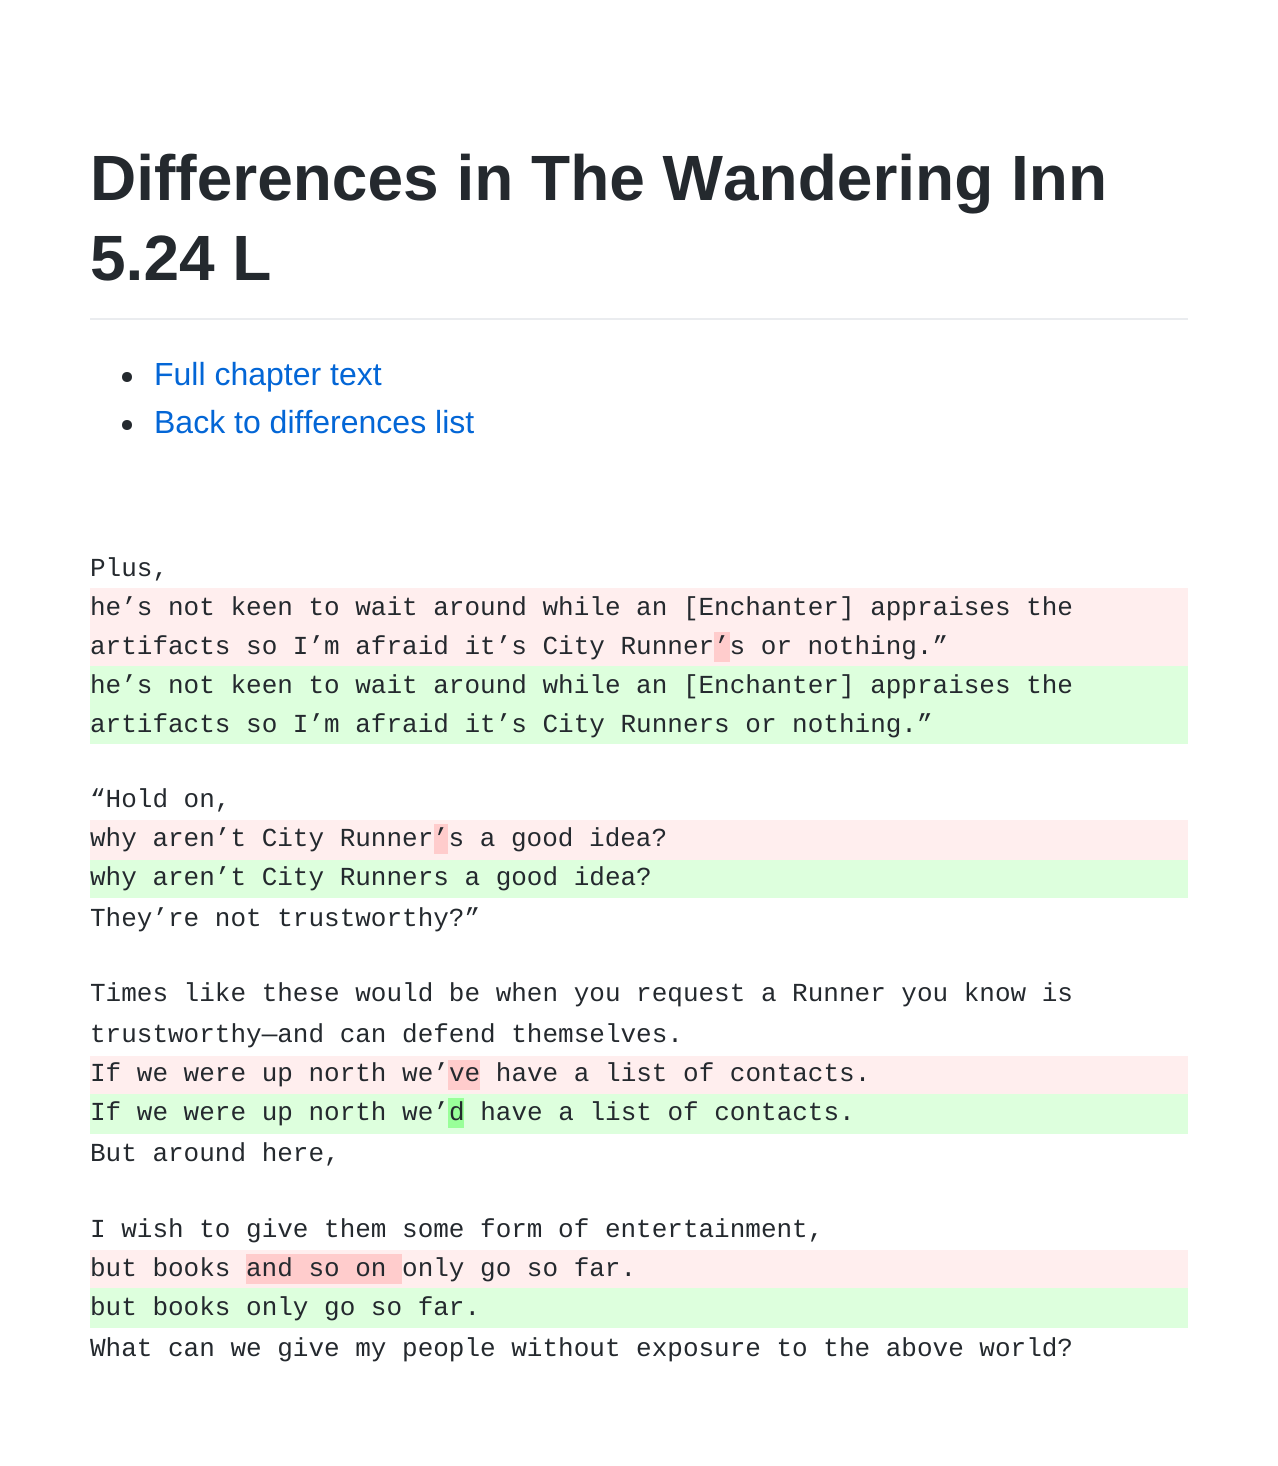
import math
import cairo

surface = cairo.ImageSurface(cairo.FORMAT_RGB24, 1278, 1466)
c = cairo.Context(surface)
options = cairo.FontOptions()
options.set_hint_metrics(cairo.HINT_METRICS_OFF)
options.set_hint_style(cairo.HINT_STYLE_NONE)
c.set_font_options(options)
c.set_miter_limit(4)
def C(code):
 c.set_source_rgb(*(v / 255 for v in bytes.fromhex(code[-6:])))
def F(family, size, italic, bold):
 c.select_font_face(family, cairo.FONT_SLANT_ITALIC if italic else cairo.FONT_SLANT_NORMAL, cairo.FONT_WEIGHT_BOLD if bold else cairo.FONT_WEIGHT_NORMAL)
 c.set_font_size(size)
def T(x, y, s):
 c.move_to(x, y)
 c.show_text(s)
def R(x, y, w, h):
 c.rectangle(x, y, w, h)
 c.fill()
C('ffffff')
c.paint()
C('eaecef')
R(90,318,1098,2)
F('Liberation Sans',64,0,1)
C('24292e')
T(90,200,'Differences in The Wandering Inn')
T(90,280,'5.24 L')
c.new_path()
c.arc(127,377,5,0,2 * math.pi)
c.fill()
F('Liberation Sans',32,0,0)
C('0366d6')
T(154,385,'Full chapter text')
C('24292e')
c.new_path()
c.arc(127,425,5,0,2 * math.pi)
c.fill()
C('0366d6')
T(154,433,'Back to differences list')
F('Liberation Mono',26,0,0)
C('24292e')
T(90,576,'Plus,')
C('ffeeee')
R(90,588,1098,78)
C('24292e')
T(90,615,'he’s not keen to wait around while an [Enchanter] appraises the')
T(90,654,'artifacts so I’m afraid it’s City Runner')
C('ffcccc')
R(714,632,16,30)
C('24292e')
T(714,654,'’s or nothing.”')
C('ddffdd')
R(90,666,1098,78)
C('24292e')
T(90,693,'he’s not keen to wait around while an [Enchanter] appraises the')
T(90,732,'artifacts so I’m afraid it’s City Runners or nothing.”')
T(90,807,'“Hold on,')
C('ffeeee')
R(90,820,1098,40)
C('24292e')
T(90,846,'why aren’t City Runner')
C('ffcccc')
R(434,824,14,30)
C('24292e')
T(433,846,'’s a good idea?')
C('ddffdd')
R(90,860,1098,38)
C('24292e')
T(90,885,'why aren’t City Runners a good idea?')
T(90,926,'They’re not trustworthy?”')
T(90,1001,'Times like these would be when you request a Runner you know is')
T(90,1042,'trustworthy—and can defend themselves.')
C('ffeeee')
R(90,1056,1098,38)
C('24292e')
T(90,1081,'If we were up north we’')
C('ffcccc')
R(448,1060,32,30)
C('24292e')
T(449,1081,'ve have a list of contacts.')
C('ddffdd')
R(90,1094,1098,40)
C('24292e')
T(90,1120,'If we were up north we’')
C('99ff99')
R(448,1098,16,30)
C('24292e')
T(449,1120,'d have a list of contacts.')
T(90,1161,'But around here,')
T(90,1237,'I wish to give them some form of entertainment,')
C('ffeeee')
R(90,1250,1098,38)
C('24292e')
T(90,1276,'but books')
C('ffcccc')
R(246,1254,156,30)
C('24292e')
T(246,1276,'and so on only go so far.')
C('ddffdd')
R(90,1288,1098,40)
C('24292e')
T(90,1315,'but books only go so far.')
T(90,1356,'What can we give my people without exposure to the above world?')
surface.write_to_png('o.png')
